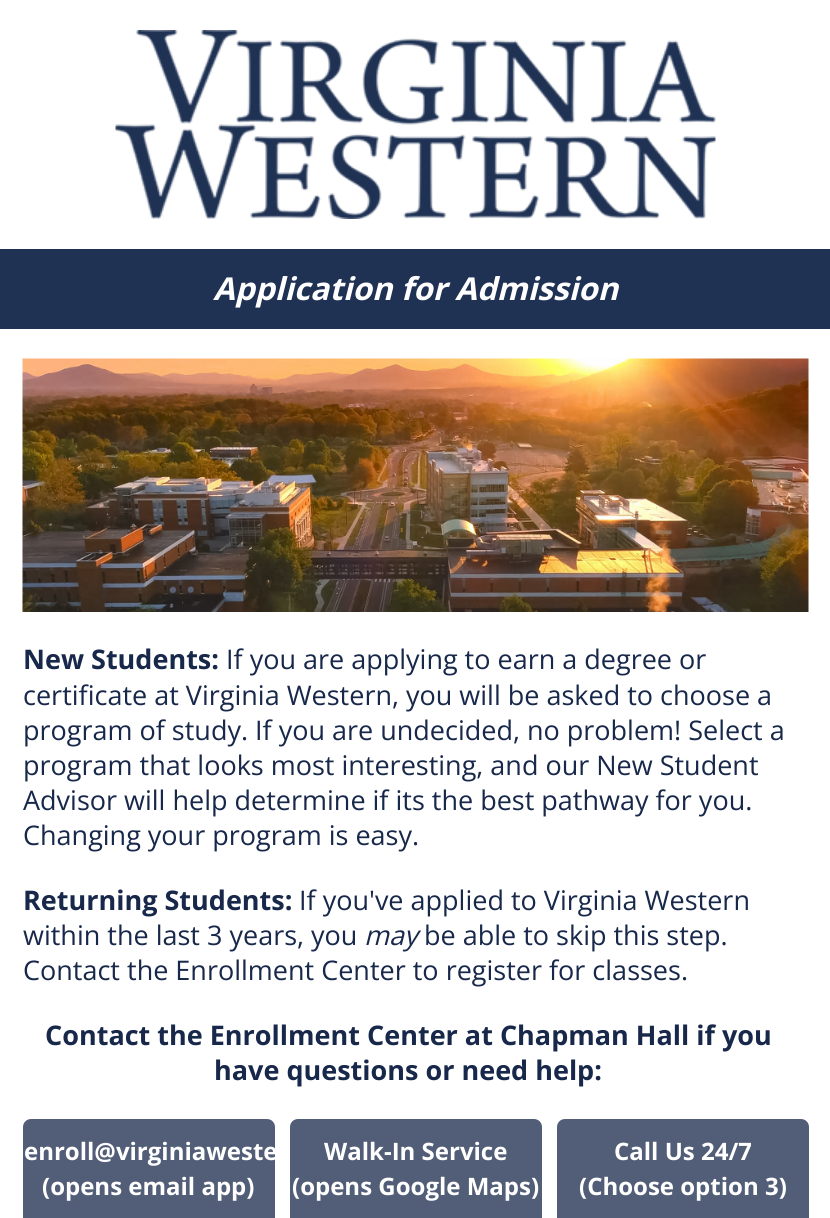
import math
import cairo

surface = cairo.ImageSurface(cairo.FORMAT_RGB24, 830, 1218)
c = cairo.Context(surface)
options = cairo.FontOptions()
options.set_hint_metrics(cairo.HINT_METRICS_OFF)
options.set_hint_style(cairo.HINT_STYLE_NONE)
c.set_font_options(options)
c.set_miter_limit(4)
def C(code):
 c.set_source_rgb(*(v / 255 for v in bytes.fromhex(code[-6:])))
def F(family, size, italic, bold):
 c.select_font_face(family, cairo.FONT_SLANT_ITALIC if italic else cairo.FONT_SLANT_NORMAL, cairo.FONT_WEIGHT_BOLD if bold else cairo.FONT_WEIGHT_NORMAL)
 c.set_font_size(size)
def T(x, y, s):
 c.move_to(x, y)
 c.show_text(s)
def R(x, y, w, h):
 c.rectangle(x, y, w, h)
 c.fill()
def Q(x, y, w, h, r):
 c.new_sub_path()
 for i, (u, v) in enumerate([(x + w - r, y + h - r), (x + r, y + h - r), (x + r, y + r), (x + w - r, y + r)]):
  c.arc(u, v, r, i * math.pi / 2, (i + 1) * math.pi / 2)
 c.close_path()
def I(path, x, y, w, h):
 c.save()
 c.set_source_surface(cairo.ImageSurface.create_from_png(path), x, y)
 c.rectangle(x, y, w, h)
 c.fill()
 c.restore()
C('ffffff')
c.paint()
I('1.png',115,30,601,189)
C('1f3254')
R(0,249,830,80)
F('Open Sans',31.5,1,1)
C('ffffff')
T(213,300,'Application for Admission')
I('2.png',22,358,787,254)
F('Open Sans',27,0,1)
C('18284a')
T(23,669,'New Students:')
F('Open Sans',27,0,0)
T(226,669,'If you are applying to earn a degree or')
T(23,705,'certificate at Virginia Western, you will be asked to choose a')
T(23,740,'program of study. If you are undecided, no problem! Select a')
T(23,775,'program that looks most interesting, and our New Student')
T(23,810,'Advisor will help determine if its the best pathway for you.')
T(23,845,'Changing your program is easy.')
F('Open Sans',27,0,1)
T(23,910,'Returning Students:')
F('Open Sans',27,0,0)
T(299,910,'If you\'ve applied to Virginia Western')
T(23,945,'within the last 3 years, you')
F('Open Sans',27,1,0)
T(364,945,'may')
F('Open Sans',27,0,0)
T(424,945,'be able to skip this step.')
T(23,980,'Contact the Enrollment Center to register for classes.')
F('Open Sans',27,0,1)
T(45,1045,'Contact the Enrollment Center at Chapman Hall if you')
T(214,1080,'have questions or need help:')
C('525e77')
Q(24,1120,250,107,7)
c.fill_preserve()
c.stroke()
F('Open Sans',24,0,1)
C('ffffff')
T(24,1160,'enroll@virginiaweste')
T(42,1195,'(opens email app)')
C('525e77')
Q(291,1120,250,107,7)
c.fill_preserve()
c.stroke()
C('ffffff')
T(324,1160,'Walk-In Service')
T(292,1195,'(opens Google Maps)')
C('525e77')
Q(558,1120,250,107,7)
c.fill_preserve()
c.stroke()
C('ffffff')
T(614,1160,'Call Us 24/7')
T(579,1195,'(Choose option 3)')
surface.write_to_png('o.png')
